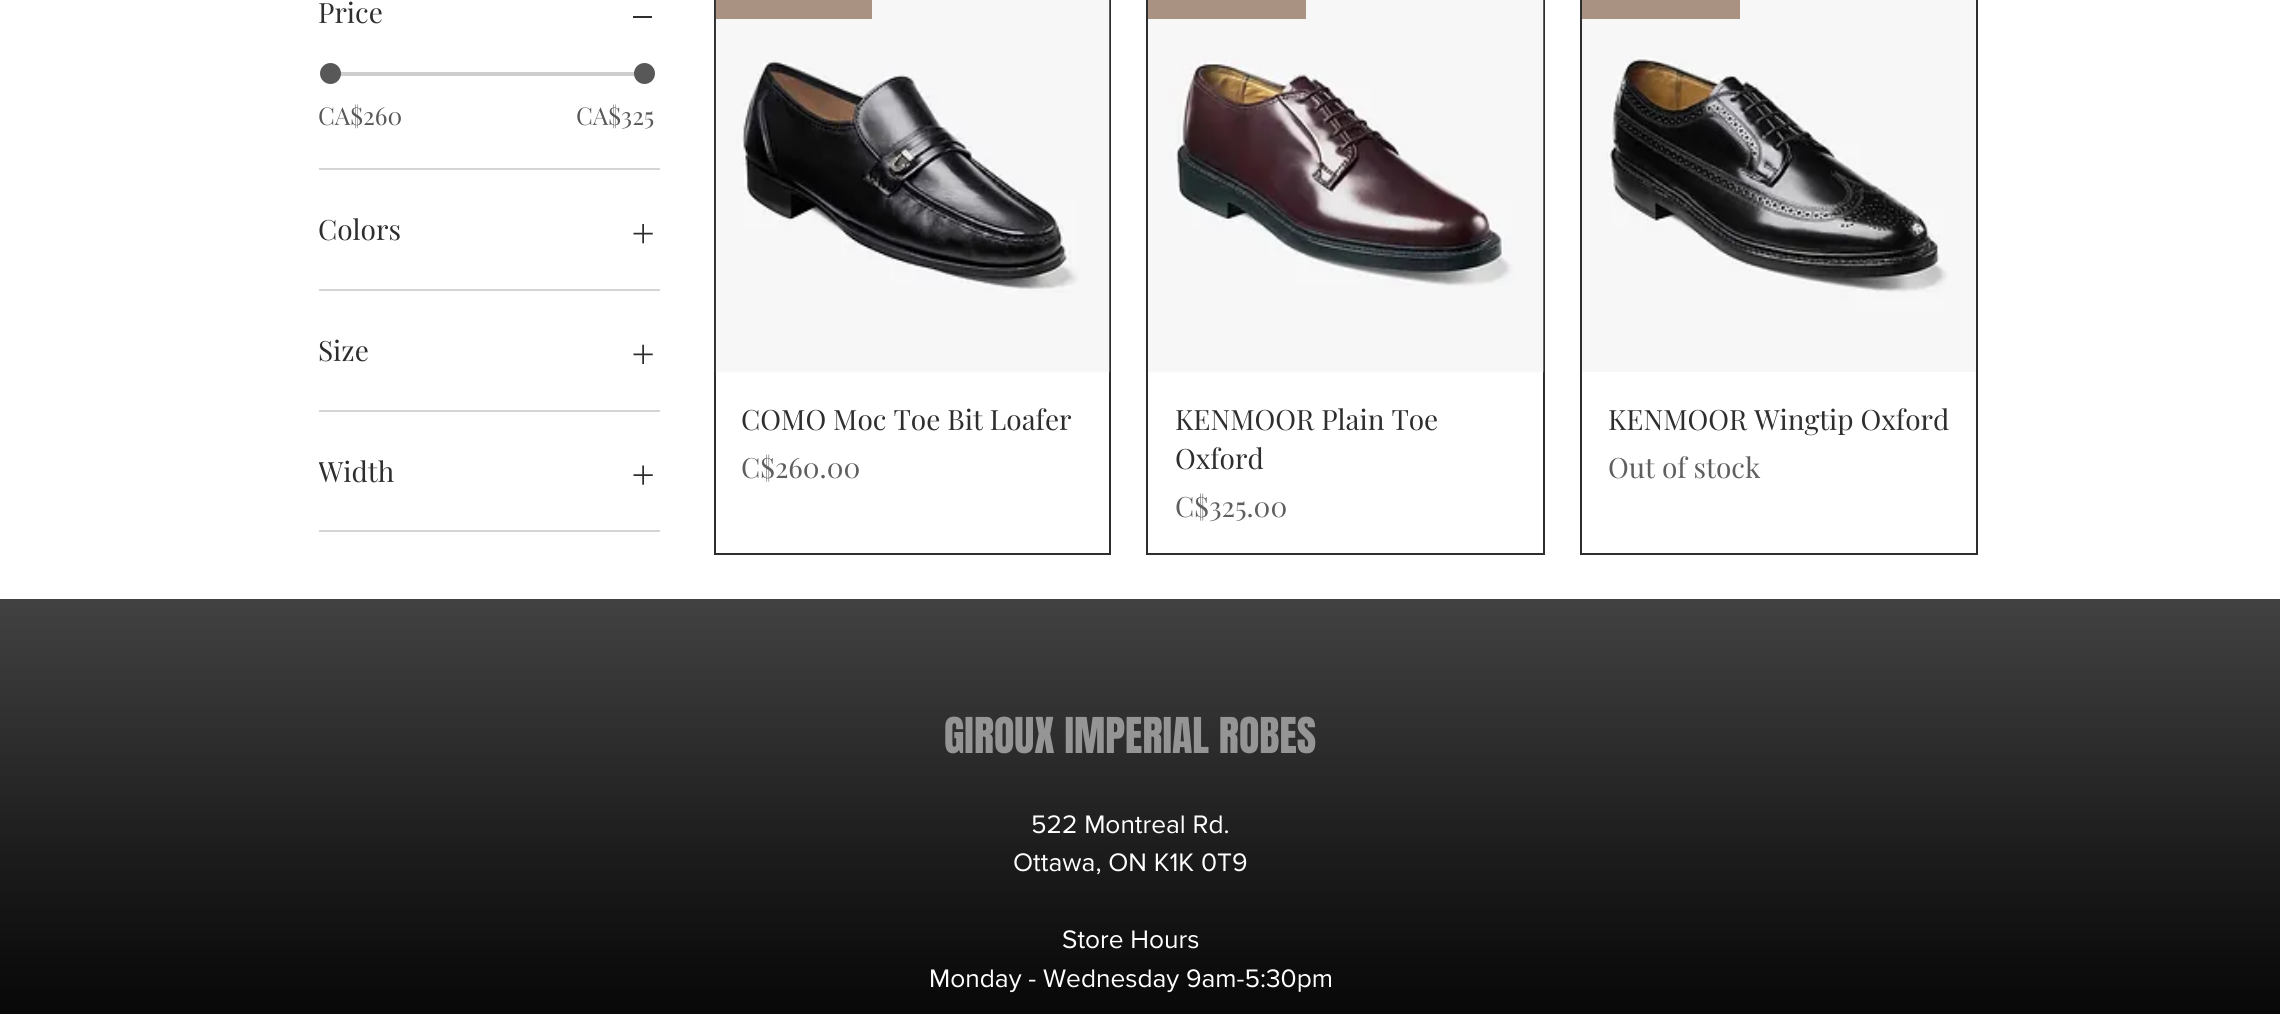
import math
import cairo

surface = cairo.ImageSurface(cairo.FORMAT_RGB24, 2280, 1014)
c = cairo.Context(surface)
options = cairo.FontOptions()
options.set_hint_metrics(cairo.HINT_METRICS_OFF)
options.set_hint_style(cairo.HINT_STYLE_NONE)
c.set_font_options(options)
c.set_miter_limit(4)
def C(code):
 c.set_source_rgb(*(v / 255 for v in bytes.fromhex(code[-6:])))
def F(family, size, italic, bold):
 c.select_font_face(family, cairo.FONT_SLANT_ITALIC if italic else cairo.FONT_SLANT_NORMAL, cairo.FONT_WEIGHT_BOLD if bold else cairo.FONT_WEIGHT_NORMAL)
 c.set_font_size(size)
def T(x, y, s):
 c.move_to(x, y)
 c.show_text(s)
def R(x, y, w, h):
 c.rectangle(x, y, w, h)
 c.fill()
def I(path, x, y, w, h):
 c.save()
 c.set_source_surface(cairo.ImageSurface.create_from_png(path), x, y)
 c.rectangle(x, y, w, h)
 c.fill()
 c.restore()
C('ffffff')
c.paint()
C('d5d5d5')
R(319,168,341,2)
F('Playfair Display',28,0,0)
C('2f2e2e')
T(318,23,'Price')
R(633,16,19,2)
C('cdcdcd')
R(340,72,302,4)
C('595858')
c.new_path()
c.arc(330.5,73.5,10.5,0,2 * math.pi)
c.fill()
c.arc(644.5,73.5,10.5,0,2 * math.pi)
c.fill()
F('Playfair Display',24.5,0,0)
T(318,125,'CA$260')
T(576,125,'CA$325')
C('d5d5d5')
R(319,289,341,2)
F('Playfair Display',28,0,0)
C('2f2e2e')
T(318,240,'Colors')
I('1.png',633,224,20,20)
C('d5d5d5')
R(319,410,341,2)
C('2f2e2e')
T(318,361,'Size')
I('2.png',633,344,20,20)
C('d5d5d5')
R(319,530,341,2)
c.save()
c.rectangle(319,446,75,49)
c.clip()
C('2f2e2e')
T(318,482,'Width')
c.restore()
I('3.png',633,465,20,20)
c.rectangle(715,-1,395,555)
C('2f2e2e')
c.stroke()
I('4.png',715,0,395,373)
C('aa9283')
R(716,0,156,19)
C('2f2e2e')
T(741,430,'COMO Moc Toe Bit Loafer')
C('605e5e')
T(741,478,'C$260.00')
c.rectangle(1147,-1,397,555)
C('2f2e2e')
c.stroke()
I('5.png',1148,0,396,373)
C('aa9283')
R(1148,0,158,19)
C('2f2e2e')
T(1175,430,'KENMOOR Plain Toe')
T(1175,469,'Oxford')
C('605e5e')
T(1175,517,'C$325.00')
c.rectangle(1581,-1,396,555)
C('2f2e2e')
c.stroke()
I('6.png',1582,0,394,372)
C('aa9283')
R(1582,0,158,19)
C('2f2e2e')
T(1608,430,'KENMOOR Wingtip Oxford')
C('605e5e')
T(1608,478,'Out of stock')
C('000000')
R(0,599,2280,415)
I('7.png',0,599,2280,415)
F('Anton',42,0,0)
C('959595')
T(944,753,'GIROUX IMPERIAL ROBES')
F('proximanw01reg',26.25,0,0)
C('ffffff')
T(1031,833,'522 Montreal Rd.')
T(1013,871,'Ottawa, ON K1K 0T9')
T(1062,948,'Store Hours')
T(929,987,'Monday - Wednesday 9am-5:30pm')
surface.write_to_png('o.png')
